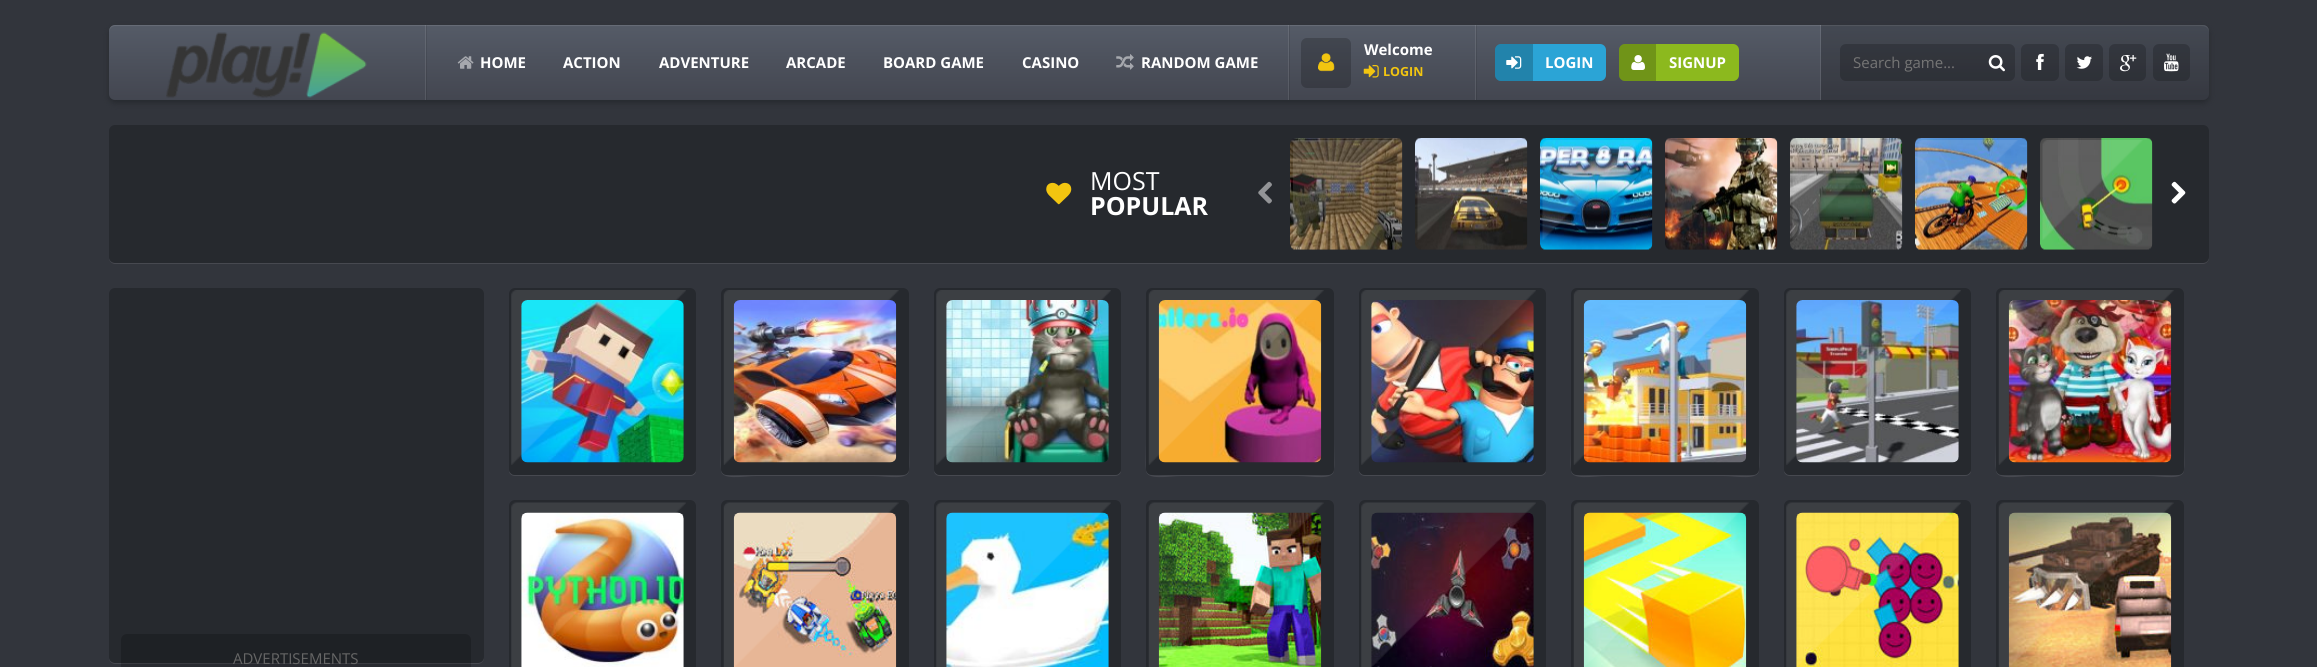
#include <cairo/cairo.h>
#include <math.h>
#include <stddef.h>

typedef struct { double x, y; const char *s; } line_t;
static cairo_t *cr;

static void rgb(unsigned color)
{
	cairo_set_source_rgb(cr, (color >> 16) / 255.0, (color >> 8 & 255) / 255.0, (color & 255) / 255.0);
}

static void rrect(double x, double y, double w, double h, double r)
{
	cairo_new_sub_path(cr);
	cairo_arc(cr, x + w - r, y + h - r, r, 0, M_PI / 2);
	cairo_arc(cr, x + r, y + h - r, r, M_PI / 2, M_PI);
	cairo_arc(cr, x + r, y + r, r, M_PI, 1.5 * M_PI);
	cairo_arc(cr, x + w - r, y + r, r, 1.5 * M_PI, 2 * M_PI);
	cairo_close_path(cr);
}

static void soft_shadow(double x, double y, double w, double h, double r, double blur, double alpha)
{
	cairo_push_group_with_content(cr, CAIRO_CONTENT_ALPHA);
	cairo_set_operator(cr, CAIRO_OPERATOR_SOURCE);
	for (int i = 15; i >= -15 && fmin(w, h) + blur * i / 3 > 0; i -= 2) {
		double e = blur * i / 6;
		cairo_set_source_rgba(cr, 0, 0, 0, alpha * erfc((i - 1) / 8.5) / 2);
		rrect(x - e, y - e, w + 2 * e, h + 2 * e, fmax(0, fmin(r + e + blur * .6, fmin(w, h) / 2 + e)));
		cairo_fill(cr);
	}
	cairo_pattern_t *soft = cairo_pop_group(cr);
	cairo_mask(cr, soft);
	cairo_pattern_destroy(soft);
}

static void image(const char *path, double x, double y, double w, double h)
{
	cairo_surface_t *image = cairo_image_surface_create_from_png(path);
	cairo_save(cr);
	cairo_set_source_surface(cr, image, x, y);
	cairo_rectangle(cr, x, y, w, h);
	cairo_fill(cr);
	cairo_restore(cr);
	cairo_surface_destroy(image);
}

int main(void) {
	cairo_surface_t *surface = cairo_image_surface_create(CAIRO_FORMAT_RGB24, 2317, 667);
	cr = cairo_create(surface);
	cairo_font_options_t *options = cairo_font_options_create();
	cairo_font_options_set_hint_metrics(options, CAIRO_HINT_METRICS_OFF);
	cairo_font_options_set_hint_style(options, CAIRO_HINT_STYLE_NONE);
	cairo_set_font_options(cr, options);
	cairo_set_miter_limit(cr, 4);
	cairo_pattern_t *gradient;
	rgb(0x32353c);
	cairo_paint(cr);
	rgb(0x26292e);
	soft_shadow(109, 28, 2100, 75, 6, 3, 1);
	gradient = cairo_pattern_create_linear(1159, 25, 1159, 100);
	cairo_pattern_add_color_stop_rgba(gradient, 0, 0.333, 0.357, 0.404, 1);
	cairo_pattern_add_color_stop_rgba(gradient, 1, 0.263, 0.275, 0.314, 1);
	cairo_set_source(cr, gradient);
	cairo_pattern_destroy(gradient);
	rrect(109, 25, 2100, 75, 6);
	cairo_fill(cr);
	cairo_set_source_rgba(cr, 1, 1, 1, 0.1);
	cairo_new_path(cr);
	cairo_move_to(cr, 115, 26);
	cairo_line_to(cr, 2202, 26);
	cairo_curve_to(cr, 2206, 26, 2209, 29, 2209, 32);
	cairo_curve_to(cr, 2209, 28, 2207, 25, 2203, 25);
	cairo_line_to(cr, 115, 25);
	cairo_curve_to(cr, 111, 25, 109, 28, 109, 32);
	cairo_curve_to(cr, 109, 29, 112, 26, 115, 26);
	cairo_close_path(cr);
	cairo_fill(cr);
	image("img/1.png", 166, 32, 201, 66);
	cairo_rectangle(cr, 425, 25, 1, 75);
	cairo_fill(cr);
	cairo_set_source_rgba(cr, 0, 0, 0, 0.1);
	cairo_rectangle(cr, 426, 25, 1, 75);
	cairo_fill(cr);
	image("img/2.png", 457, 56, 17, 13);
	image("img/3.png", 1116, 54, 18, 16);
	cairo_set_source_rgba(cr, 1, 1, 1, 0.1);
	cairo_rectangle(cr, 1288, 25, 1, 75);
	cairo_fill(cr);
	cairo_set_source_rgba(cr, 0, 0, 0, 0.1);
	cairo_rectangle(cr, 1289, 25, 1, 75);
	cairo_fill(cr);
	cairo_set_source_rgba(cr, 0, 0, 0, 0.2);
	rrect(1301, 38, 50, 50, 6);
	cairo_fill(cr);
	image("img/4.png", 1318, 53, 17, 19);
	cairo_set_source_rgba(cr, 1, 1, 1, 0.1);
	cairo_rectangle(cr, 1475, 25, 1, 75);
	cairo_fill(cr);
	image("img/5.png", 1363, 65, 16, 13);
	cairo_set_source_rgba(cr, 0, 0, 0, 0.1);
	cairo_rectangle(cr, 1476, 25, 1, 75);
	cairo_fill(cr);
	rgb(0x2ba4d6);
	rrect(1495, 44, 111, 37, 6);
	cairo_fill(cr);
	cairo_set_source_rgba(cr, 0, 0, 0, 0.2);
	cairo_new_path(cr);
	cairo_move_to(cr, 1501, 44);
	cairo_line_to(cr, 1533, 44);
	cairo_line_to(cr, 1533, 81);
	cairo_line_to(cr, 1501, 81);
	cairo_curve_to(cr, 1497.5, 81, 1495, 78.5, 1495, 75);
	cairo_line_to(cr, 1495, 50);
	cairo_curve_to(cr, 1495, 46.5, 1497.5, 44, 1501, 44);
	cairo_close_path(cr);
	cairo_fill(cr);
	image("img/6.png", 1506, 56, 16, 13);
	rgb(0x8cb91e);
	rrect(1619, 44, 120, 37, 6);
	cairo_fill(cr);
	cairo_set_source_rgba(cr, 0, 0, 0, 0.2);
	cairo_new_path(cr);
	cairo_move_to(cr, 1625, 44);
	cairo_line_to(cr, 1656, 44);
	cairo_line_to(cr, 1656, 81);
	cairo_line_to(cr, 1625, 81);
	cairo_curve_to(cr, 1621.5, 81, 1619, 78.5, 1619, 75);
	cairo_line_to(cr, 1619, 50);
	cairo_curve_to(cr, 1619, 46.5, 1621.5, 44, 1625, 44);
	cairo_close_path(cr);
	cairo_fill(cr);
	image("img/7.png", 1631, 55, 14, 15);
	cairo_new_path(cr);
	cairo_move_to(cr, 1821, 25);
	cairo_line_to(cr, 2203, 25);
	cairo_curve_to(cr, 2206.5, 25, 2209, 27.5, 2209, 31);
	cairo_line_to(cr, 2209, 94);
	cairo_curve_to(cr, 2209, 97.5, 2206.5, 100, 2203, 100);
	cairo_line_to(cr, 1821, 100);
	cairo_close_path(cr);
	cairo_fill(cr);
	cairo_set_source_rgba(cr, 1, 1, 1, 0.1);
	cairo_rectangle(cr, 1820, 25, 1, 75);
	cairo_fill(cr);
	cairo_set_source_rgba(cr, 0, 0, 0, 0.2);
	rrect(1840, 44, 175, 37, 6);
	cairo_fill(cr);
	image("img/8.png", 1988, 55, 17, 17);
	rrect(2021, 44, 38, 37, 6);
	cairo_fill(cr);
	image("img/9.png", 2036, 53, 8, 17);
	rrect(2065, 44, 38, 37, 6);
	cairo_fill(cr);
	image("img/10.png", 2076, 56, 16, 13);
	rrect(2109, 44, 37, 37, 6);
	cairo_fill(cr);
	image("img/11.png", 2120, 55, 17, 17);
	rrect(2153, 44, 37, 37, 6);
	cairo_fill(cr);
	image("img/12.png", 2164, 53, 15, 19);
	rgb(0x474950);
	cairo_new_path(cr);
	cairo_move_to(cr, 109, 258);
	cairo_curve_to(cr, 109, 261, 112, 264, 115, 264);
	cairo_line_to(cr, 2203, 264);
	cairo_curve_to(cr, 2206, 264, 2209, 261, 2209, 258);
	cairo_line_to(cr, 2209, 132);
	cairo_line_to(cr, 2209, 130);
	cairo_line_to(cr, 2209, 256);
	cairo_curve_to(cr, 2209, 260, 2206, 262, 2202, 262);
	cairo_line_to(cr, 115, 262);
	cairo_curve_to(cr, 112, 262, 110, 261, 109, 258);
	cairo_close_path(cr);
	cairo_fill(cr);
	rgb(0x26292e);
	rrect(109, 125, 2100, 138, 6);
	cairo_fill(cr);
	image("img/13.png", 1046, 182, 26, 23);
	image("img/14.png", 1290, 138, 113, 112);
	image("img/15.png", 1293, 140, 100, 100);
	image("img/16.png", 1415, 138, 113, 112);
	image("img/17.png", 1417, 140, 100, 100);
	image("img/18.png", 1540, 138, 113, 112);
	image("img/19.png", 1542, 140, 101, 100);
	image("img/20.png", 1665, 138, 113, 112);
	image("img/21.png", 1667, 140, 100, 100);
	image("img/22.png", 1790, 138, 113, 112);
	image("img/23.png", 1792, 140, 101, 100);
	image("img/24.png", 1915, 138, 113, 112);
	image("img/25.png", 1917, 140, 101, 100);
	image("img/26.png", 2040, 138, 113, 112);
	image("img/27.png", 2042, 140, 101, 100);
	image("img/28.png", 1258, 181, 14, 23);
	image("img/29.png", 2171, 181, 15, 23);
	rgb(0x474950);
	cairo_new_path(cr);
	cairo_move_to(cr, 109, 658);
	cairo_curve_to(cr, 109, 661, 112, 664, 115, 664);
	cairo_line_to(cr, 478, 664);
	cairo_curve_to(cr, 481, 664, 484, 661, 484, 658);
	cairo_line_to(cr, 484, 293);
	cairo_line_to(cr, 484, 656);
	cairo_curve_to(cr, 484, 660, 481, 662, 478, 662);
	cairo_line_to(cr, 115, 662);
	cairo_curve_to(cr, 112, 662, 110, 661, 109, 658);
	cairo_close_path(cr);
	cairo_fill(cr);
	rgb(0x26292e);
	rrect(109, 288, 375, 375, 6);
	cairo_fill(cr);
	cairo_set_source_rgba(cr, 0, 0, 0, 0.2);
	rrect(121, 634, 350, 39, 6);
	cairo_fill(cr);
	rgb(0x474950);
	cairo_new_path(cr);
	cairo_move_to(cr, 509, 471);
	cairo_curve_to(cr, 509, 474, 512, 476, 515, 476);
	cairo_line_to(cr, 690, 476);
	cairo_curve_to(cr, 693, 476, 696, 474, 696, 471);
	cairo_curve_to(cr, 695, 473, 693, 475, 690, 475);
	cairo_line_to(cr, 515, 475);
	cairo_curve_to(cr, 512, 475, 510, 473, 509, 471);
	cairo_close_path(cr);
	cairo_fill(cr);
	rgb(0x26292e);
	rrect(509, 288, 187, 187, 6);
	cairo_fill(cr);
	image("img/31.png", 521, 300, 163, 163);
	image("img/30.png", 511, 290, 175, 175);
	rgb(0x474950);
	cairo_new_path(cr);
	cairo_move_to(cr, 721, 293);
	cairo_line_to(cr, 721, 470);
	cairo_curve_to(cr, 721, 481, 744, 476, 756, 476);
	cairo_line_to(cr, 874, 476);
	cairo_curve_to(cr, 886, 476, 909, 481, 909, 470);
	cairo_line_to(cr, 909, 293);
	cairo_line_to(cr, 909, 440);
	cairo_curve_to(cr, 909, 482, 916, 475, 873, 475);
	cairo_line_to(cr, 757, 475);
	cairo_curve_to(cr, 714, 475, 721, 482, 721, 440);
	cairo_close_path(cr);
	cairo_fill(cr);
	rgb(0x26292e);
	rrect(721, 288, 188, 187, 6);
	cairo_fill(cr);
	image("img/33.png", 733, 300, 164, 163);
	image("img/32.png", 723, 290, 176, 175);
	rgb(0x474950);
	cairo_new_path(cr);
	cairo_move_to(cr, 934, 471);
	cairo_curve_to(cr, 934, 474, 937, 476, 940, 476);
	cairo_line_to(cr, 1115, 476);
	cairo_curve_to(cr, 1118, 476, 1121, 474, 1121, 471);
	cairo_curve_to(cr, 1120, 473, 1118, 475, 1115, 475);
	cairo_line_to(cr, 940, 475);
	cairo_curve_to(cr, 937, 475, 935, 473, 934, 471);
	cairo_close_path(cr);
	cairo_fill(cr);
	rgb(0x26292e);
	rrect(934, 288, 187, 187, 6);
	cairo_fill(cr);
	image("img/35.png", 946, 300, 163, 163);
	image("img/34.png", 936, 290, 175, 175);
	rgb(0x474950);
	cairo_new_path(cr);
	cairo_move_to(cr, 1146, 293);
	cairo_line_to(cr, 1146, 470);
	cairo_curve_to(cr, 1146, 481, 1169, 476, 1181, 476);
	cairo_line_to(cr, 1299, 476);
	cairo_curve_to(cr, 1311, 476, 1334, 481, 1334, 470);
	cairo_line_to(cr, 1334, 293);
	cairo_line_to(cr, 1334, 440);
	cairo_curve_to(cr, 1334, 482, 1341, 475, 1298, 475);
	cairo_line_to(cr, 1182, 475);
	cairo_curve_to(cr, 1139, 475, 1146, 482, 1146, 440);
	cairo_close_path(cr);
	cairo_fill(cr);
	rgb(0x26292e);
	rrect(1146, 288, 188, 187, 6);
	cairo_fill(cr);
	image("img/37.png", 1158, 300, 164, 163);
	image("img/36.png", 1148, 290, 176, 175);
	rgb(0x474950);
	cairo_new_path(cr);
	cairo_move_to(cr, 1359, 471);
	cairo_curve_to(cr, 1359, 474, 1362, 476, 1365, 476);
	cairo_line_to(cr, 1540, 476);
	cairo_curve_to(cr, 1543, 476, 1546, 474, 1546, 471);
	cairo_curve_to(cr, 1545, 473, 1543, 475, 1540, 475);
	cairo_line_to(cr, 1365, 475);
	cairo_curve_to(cr, 1362, 475, 1360, 473, 1359, 471);
	cairo_close_path(cr);
	cairo_fill(cr);
	rgb(0x26292e);
	rrect(1359, 288, 187, 187, 6);
	cairo_fill(cr);
	image("img/39.png", 1371, 300, 163, 163);
	image("img/38.png", 1361, 290, 175, 175);
	rgb(0x474950);
	cairo_new_path(cr);
	cairo_move_to(cr, 1571, 293);
	cairo_line_to(cr, 1571, 470);
	cairo_curve_to(cr, 1571, 481, 1594, 476, 1606, 476);
	cairo_line_to(cr, 1724, 476);
	cairo_curve_to(cr, 1736, 476, 1759, 481, 1759, 470);
	cairo_line_to(cr, 1759, 293);
	cairo_line_to(cr, 1759, 440);
	cairo_curve_to(cr, 1759, 482, 1766, 475, 1723, 475);
	cairo_line_to(cr, 1607, 475);
	cairo_curve_to(cr, 1564, 475, 1571, 482, 1571, 440);
	cairo_close_path(cr);
	cairo_fill(cr);
	rgb(0x26292e);
	rrect(1571, 288, 188, 187, 6);
	cairo_fill(cr);
	image("img/41.png", 1583, 300, 164, 163);
	image("img/40.png", 1573, 290, 176, 175);
	rgb(0x474950);
	cairo_new_path(cr);
	cairo_move_to(cr, 1784, 471);
	cairo_curve_to(cr, 1784, 474, 1787, 476, 1790, 476);
	cairo_line_to(cr, 1965, 476);
	cairo_curve_to(cr, 1968, 476, 1971, 474, 1971, 471);
	cairo_curve_to(cr, 1970, 473, 1968, 475, 1965, 475);
	cairo_line_to(cr, 1790, 475);
	cairo_curve_to(cr, 1787, 475, 1785, 473, 1784, 471);
	cairo_close_path(cr);
	cairo_fill(cr);
	rgb(0x26292e);
	rrect(1784, 288, 187, 187, 6);
	cairo_fill(cr);
	image("img/43.png", 1796, 300, 163, 163);
	image("img/42.png", 1786, 290, 175, 175);
	rgb(0x474950);
	cairo_new_path(cr);
	cairo_move_to(cr, 1996, 293);
	cairo_line_to(cr, 1996, 470);
	cairo_curve_to(cr, 1996, 481, 2019, 476, 2031, 476);
	cairo_line_to(cr, 2149, 476);
	cairo_curve_to(cr, 2161, 476, 2184, 481, 2184, 470);
	cairo_line_to(cr, 2184, 293);
	cairo_line_to(cr, 2184, 440);
	cairo_curve_to(cr, 2184, 482, 2191, 475, 2148, 475);
	cairo_line_to(cr, 2032, 475);
	cairo_curve_to(cr, 1989, 475, 1996, 482, 1996, 440);
	cairo_close_path(cr);
	cairo_fill(cr);
	rgb(0x26292e);
	rrect(1996, 288, 188, 187, 6);
	cairo_fill(cr);
	image("img/45.png", 2008, 300, 164, 163);
	image("img/44.png", 1998, 290, 176, 175);
	rrect(509, 500, 187, 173, 6);
	cairo_fill(cr);
	image("img/47.png", 521, 512, 163, 155);
	image("img/46.png", 511, 502, 175, 165);
	rrect(721, 500, 188, 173, 6);
	cairo_fill(cr);
	image("img/49.png", 733, 512, 164, 155);
	image("img/48.png", 723, 502, 176, 165);
	rrect(934, 500, 187, 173, 6);
	cairo_fill(cr);
	image("img/51.png", 946, 512, 163, 155);
	image("img/50.png", 936, 502, 175, 165);
	rrect(1146, 500, 188, 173, 6);
	cairo_fill(cr);
	image("img/53.png", 1158, 512, 164, 155);
	image("img/52.png", 1148, 502, 176, 165);
	rrect(1359, 500, 187, 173, 6);
	cairo_fill(cr);
	image("img/55.png", 1371, 512, 163, 155);
	image("img/54.png", 1361, 502, 175, 165);
	rrect(1571, 500, 188, 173, 6);
	cairo_fill(cr);
	image("img/57.png", 1583, 512, 164, 155);
	image("img/56.png", 1573, 502, 176, 165);
	rrect(1784, 500, 187, 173, 6);
	cairo_fill(cr);
	image("img/59.png", 1796, 512, 163, 155);
	image("img/58.png", 1786, 502, 175, 165);
	rrect(1996, 500, 188, 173, 6);
	cairo_fill(cr);
	image("img/61.png", 2008, 512, 164, 155);
	image("img/60.png", 1998, 502, 176, 165);
	cairo_select_font_face(cr, "Open Sans", CAIRO_FONT_SLANT_NORMAL, CAIRO_FONT_WEIGHT_BOLD);
	cairo_set_font_size(cr, 15);
	rgb(0xffffff);
	{
		static const line_t items[] = {
			{480, 68, "HOME"},
			{563, 68, "ACTION"},
			{659, 68, "ADVENTURE"},
			{786, 68, "ARCADE"},
			{883, 68, "BOARD GAME"},
			{1022, 68, "CASINO"},
			{1141, 68, "RANDOM GAME"},
			{1364, 55, "Welcome"},
		};
		for (size_t i = 0; i < sizeof items / sizeof *items; i++) {
			cairo_move_to(cr, items[i].x, items[i].y);
			cairo_show_text(cr, items[i].s);
		}
	}
	cairo_set_font_size(cr, 12.5);
	rgb(0xf2c510);
	cairo_move_to(cr, 1383, 76);
	cairo_show_text(cr, "LOGIN");
	cairo_set_font_size(cr, 15);
	rgb(0xffffff);
	cairo_move_to(cr, 1545, 68);
	cairo_show_text(cr, "LOGIN");
	cairo_move_to(cr, 1669, 68);
	cairo_show_text(cr, "SIGNUP");
	cairo_select_font_face(cr, "Open Sans", CAIRO_FONT_SLANT_NORMAL, CAIRO_FONT_WEIGHT_NORMAL);
	rgb(0x757575);
	cairo_move_to(cr, 1853, 68);
	cairo_show_text(cr, "Search game...");
	cairo_set_font_size(cr, 25);
	rgb(0xffffff);
	cairo_move_to(cr, 1090, 190);
	cairo_show_text(cr, "MOST");
	cairo_select_font_face(cr, "Open Sans", CAIRO_FONT_SLANT_NORMAL, CAIRO_FONT_WEIGHT_BOLD);
	cairo_move_to(cr, 1090, 215);
	cairo_show_text(cr, "POPULAR");
	cairo_select_font_face(cr, "Open Sans", CAIRO_FONT_SLANT_NORMAL, CAIRO_FONT_WEIGHT_NORMAL);
	cairo_set_font_size(cr, 15);
	rgb(0x666666);
	cairo_move_to(cr, 233, 664);
	cairo_show_text(cr, "ADVERTISEMENTS");
	cairo_surface_write_to_png(surface, "page.png");
	cairo_font_options_destroy(options);
	cairo_destroy(cr);
	cairo_surface_destroy(surface);
	return 0;
}
